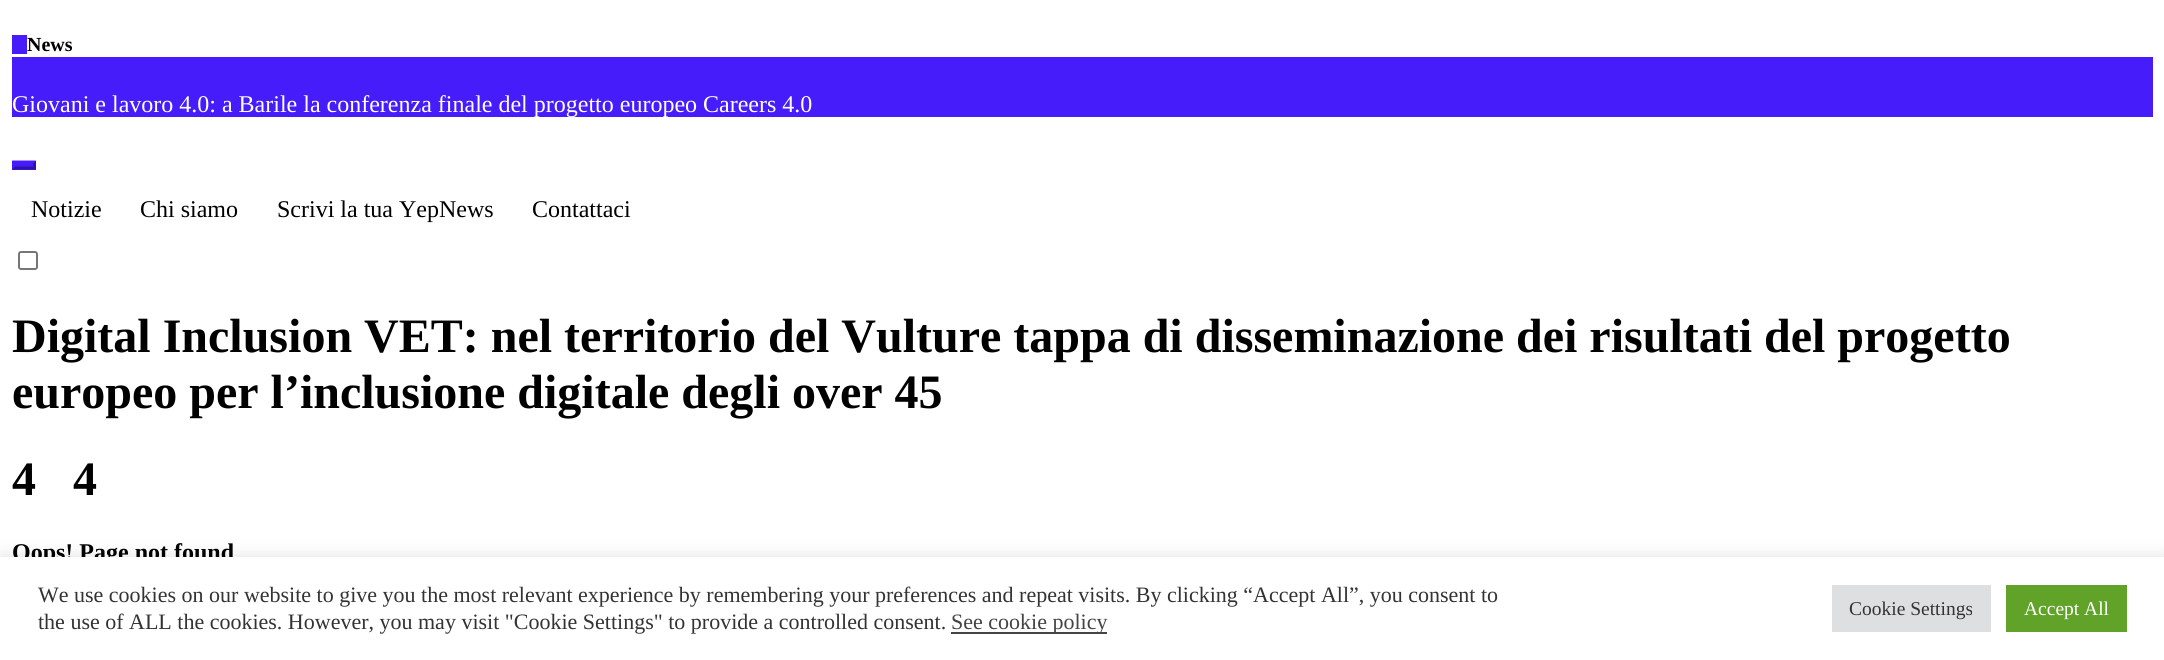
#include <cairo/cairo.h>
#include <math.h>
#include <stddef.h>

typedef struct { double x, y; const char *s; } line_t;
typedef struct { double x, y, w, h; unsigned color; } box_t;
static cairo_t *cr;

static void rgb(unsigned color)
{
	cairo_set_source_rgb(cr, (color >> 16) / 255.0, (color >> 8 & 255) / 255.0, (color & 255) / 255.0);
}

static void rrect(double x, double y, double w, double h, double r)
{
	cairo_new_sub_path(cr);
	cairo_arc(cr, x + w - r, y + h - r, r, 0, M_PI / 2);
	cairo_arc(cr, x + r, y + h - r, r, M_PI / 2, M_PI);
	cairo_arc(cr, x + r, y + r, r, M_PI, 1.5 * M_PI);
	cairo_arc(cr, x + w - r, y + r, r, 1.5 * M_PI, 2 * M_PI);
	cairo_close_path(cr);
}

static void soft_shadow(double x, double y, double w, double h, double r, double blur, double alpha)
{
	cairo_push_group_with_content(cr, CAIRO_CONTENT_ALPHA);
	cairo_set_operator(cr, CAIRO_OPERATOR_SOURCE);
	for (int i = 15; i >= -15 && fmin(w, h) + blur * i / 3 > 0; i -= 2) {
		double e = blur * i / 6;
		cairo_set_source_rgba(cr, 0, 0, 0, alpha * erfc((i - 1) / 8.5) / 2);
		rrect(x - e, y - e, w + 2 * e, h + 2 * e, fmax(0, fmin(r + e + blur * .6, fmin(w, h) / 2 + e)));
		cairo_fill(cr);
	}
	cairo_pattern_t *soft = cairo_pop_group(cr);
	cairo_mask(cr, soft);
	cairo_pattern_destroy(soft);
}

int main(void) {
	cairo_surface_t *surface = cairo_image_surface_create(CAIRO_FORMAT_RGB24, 2164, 660);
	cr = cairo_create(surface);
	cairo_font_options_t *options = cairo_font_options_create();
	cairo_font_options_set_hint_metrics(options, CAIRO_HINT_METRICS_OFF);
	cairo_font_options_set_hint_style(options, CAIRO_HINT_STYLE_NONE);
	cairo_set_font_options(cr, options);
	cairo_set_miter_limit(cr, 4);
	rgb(0xffffff);
	cairo_paint(cr);
	{
		static const box_t items[] = {
			{12, 57, 2141, 60, 0x461cfb},
			{12, 35, 15, 19, 0x461cfb},
			{12, 161, 24, 9, 0x461cfb},
		};
		for (size_t i = 0; i < sizeof items / sizeof *items; i++) {
			rgb(items[i].color);
			cairo_rectangle(cr, items[i].x, items[i].y, items[i].w, items[i].h);
			cairo_fill(cr);
		}
	}
	cairo_new_path(cr);
	cairo_move_to(cr, 12, 160.5);
	cairo_line_to(cr, 36, 160.5);
	cairo_line_to(cr, 33, 163.5);
	cairo_line_to(cr, 15, 163.5);
	cairo_close_path(cr);
	cairo_fill(cr);
	rgb(0x2f13a7);
	cairo_new_path(cr);
	cairo_move_to(cr, 36, 160.5);
	cairo_line_to(cr, 36, 169.5);
	cairo_line_to(cr, 33, 166.5);
	cairo_line_to(cr, 33, 163.5);
	cairo_close_path(cr);
	cairo_fill(cr);
	cairo_new_path(cr);
	cairo_move_to(cr, 36, 169.5);
	cairo_line_to(cr, 12, 169.5);
	cairo_line_to(cr, 15, 166.5);
	cairo_line_to(cr, 33, 166.5);
	cairo_close_path(cr);
	cairo_fill(cr);
	rgb(0x461cfb);
	cairo_new_path(cr);
	cairo_move_to(cr, 12, 169.5);
	cairo_line_to(cr, 12, 160.5);
	cairo_line_to(cr, 15, 163.5);
	cairo_line_to(cr, 15, 166.5);
	cairo_close_path(cr);
	cairo_fill(cr);
	rrect(19, 252, 18, 17, 2);
	rgb(0x767676);
	cairo_stroke(cr);
	rgb(0xacabab);
	soft_shadow(0, 555, 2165, 104, 0, 7.5, 0.3);
	cairo_select_font_face(cr, "Liberation Serif", CAIRO_FONT_SLANT_NORMAL, CAIRO_FONT_WEIGHT_BOLD);
	cairo_set_font_size(cr, 20);
	rgb(0x000000);
	cairo_move_to(cr, 27, 51);
	cairo_show_text(cr, "News");
	cairo_save(cr);
	cairo_rectangle(cr, 12, 90, 2141, 27);
	cairo_clip(cr);
	cairo_select_font_face(cr, "Liberation Serif", CAIRO_FONT_SLANT_NORMAL, CAIRO_FONT_WEIGHT_NORMAL);
	cairo_set_font_size(cr, 24);
	rgb(0xffffff);
	cairo_move_to(cr, 12, 112);
	cairo_show_text(cr, "Giovani e lavoro 4.0: a Barile la conferenza finale del progetto europeo Careers 4.0");
	cairo_restore(cr);
	cairo_select_font_face(cr, "Liberation Serif", CAIRO_FONT_SLANT_NORMAL, CAIRO_FONT_WEIGHT_NORMAL);
	cairo_set_font_size(cr, 24);
	{
		static const line_t items[] = {
			{31, 217, "Notizie"},
			{140, 217, "Chi siamo"},
			{277, 217, "Scrivi la tua YepNews"},
			{532, 217, "Contattaci"},
		};
		for (size_t i = 0; i < sizeof items / sizeof *items; i++) {
			cairo_move_to(cr, items[i].x, items[i].y);
			cairo_show_text(cr, items[i].s);
		}
	}
	cairo_select_font_face(cr, "Liberation Serif", CAIRO_FONT_SLANT_NORMAL, CAIRO_FONT_WEIGHT_BOLD);
	cairo_set_font_size(cr, 48);
	{
		static const line_t items[] = {
			{12, 352, "Digital Inclusion VET: nel territorio del Vulture tappa di disseminazione dei risultati del progetto"},
			{12, 408, "europeo per l’inclusione digitale degli over 45"},
			{12, 495, "4"},
			{73, 495, "4"},
		};
		for (size_t i = 0; i < sizeof items / sizeof *items; i++) {
			cairo_move_to(cr, items[i].x, items[i].y);
			cairo_show_text(cr, items[i].s);
		}
	}
	cairo_set_font_size(cr, 24);
	cairo_move_to(cr, 12, 560);
	cairo_show_text(cr, "Oops! Page not found");
	rgb(0xffffff);
	cairo_rectangle(cr, 0, 557, 2164, 103);
	cairo_fill(cr);
	cairo_select_font_face(cr, "Liberation Serif", CAIRO_FONT_SLANT_NORMAL, CAIRO_FONT_WEIGHT_NORMAL);
	cairo_set_font_size(cr, 22);
	rgb(0x333333);
	cairo_move_to(cr, 38, 602);
	cairo_show_text(cr, "We use cookies on our website to give you the most relevant experience by remembering your preferences and repeat visits. By clicking “Accept All”, you consent to");
	cairo_move_to(cr, 38, 629);
	cairo_show_text(cr, "the use of ALL the cookies. However, you may visit \"Cookie Settings\" to provide a controlled consent.");
	rgb(0x444444);
	cairo_rectangle(cr, 951, 632, 156, 2);
	cairo_fill(cr);
	cairo_move_to(cr, 951, 629);
	cairo_show_text(cr, "See cookie policy");
	rgb(0xdedfe0);
	cairo_rectangle(cr, 1832, 585, 159, 47);
	cairo_fill(cr);
	cairo_set_font_size(cr, 19.5);
	rgb(0x333333);
	cairo_move_to(cr, 1849, 615);
	cairo_show_text(cr, "Cookie Settings");
	rgb(0x61a229);
	cairo_rectangle(cr, 2006, 585, 121, 47);
	cairo_fill(cr);
	rgb(0xffffff);
	cairo_move_to(cr, 2024, 615);
	cairo_show_text(cr, "Accept All");
	cairo_surface_write_to_png(surface, "page.png");
	cairo_font_options_destroy(options);
	cairo_destroy(cr);
	cairo_surface_destroy(surface);
	return 0;
}
